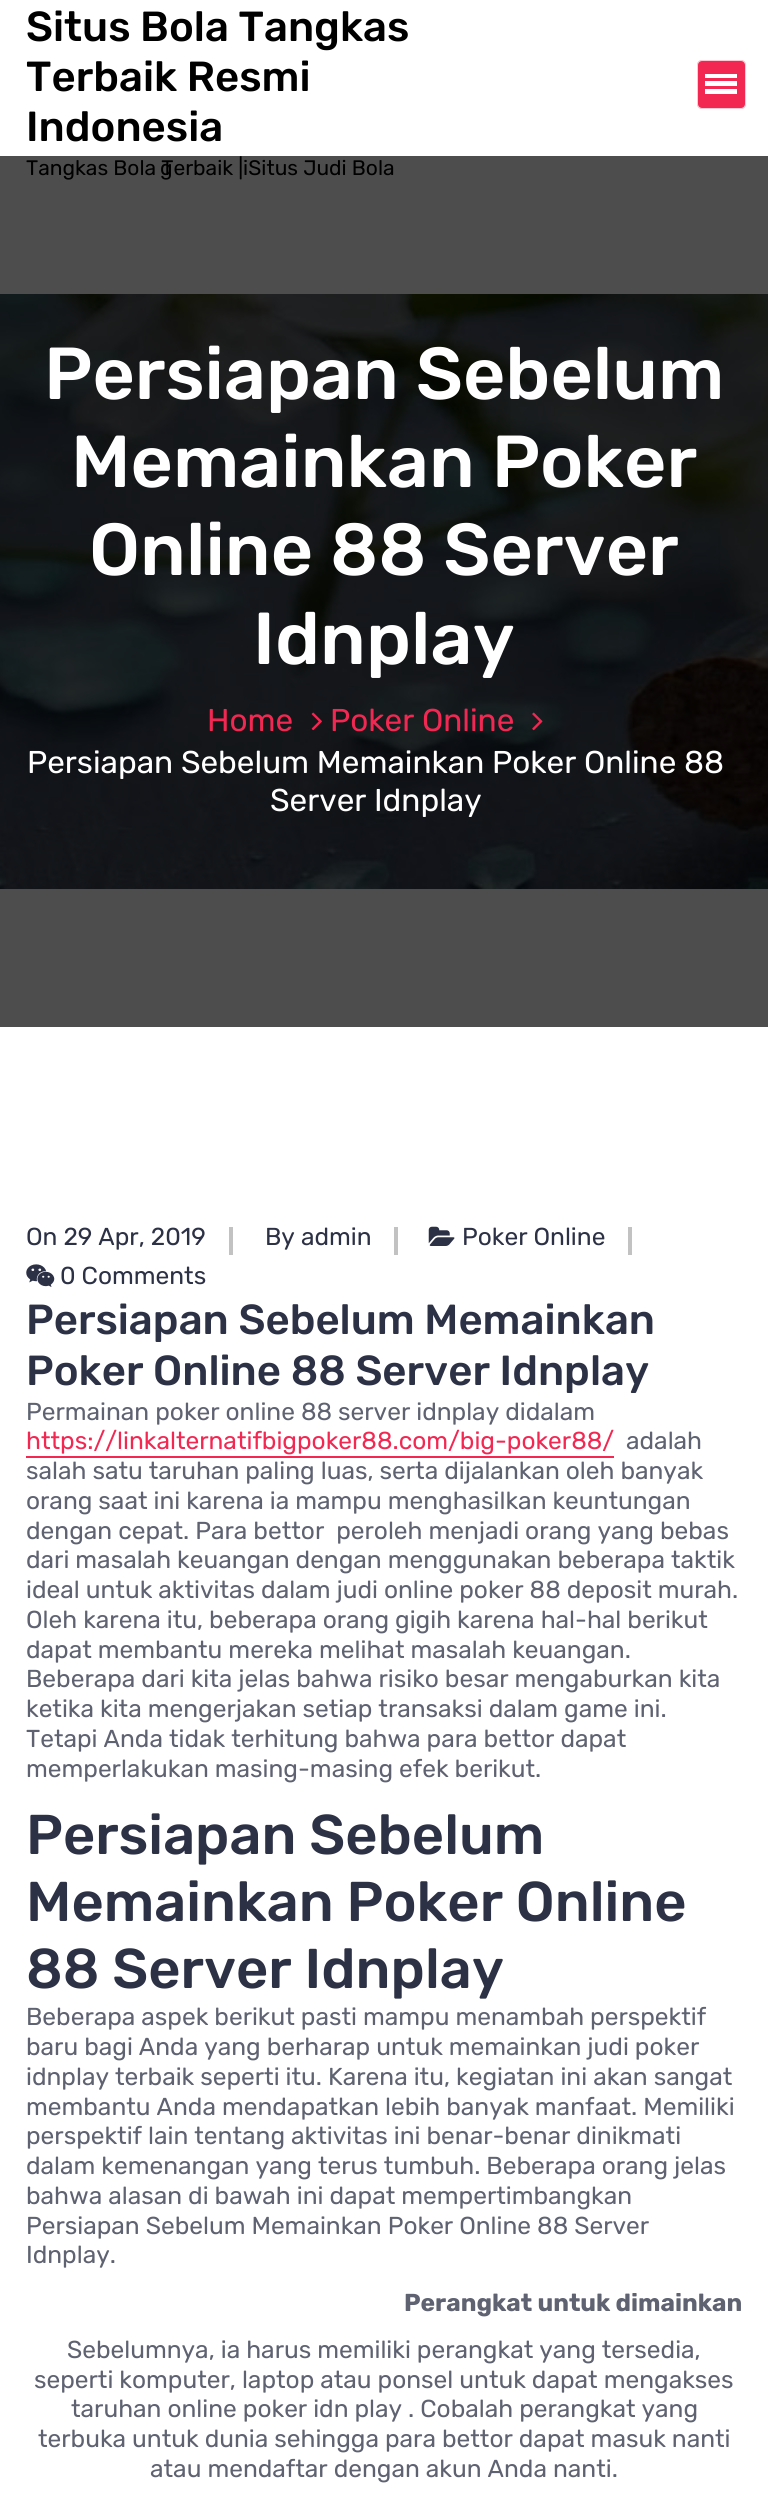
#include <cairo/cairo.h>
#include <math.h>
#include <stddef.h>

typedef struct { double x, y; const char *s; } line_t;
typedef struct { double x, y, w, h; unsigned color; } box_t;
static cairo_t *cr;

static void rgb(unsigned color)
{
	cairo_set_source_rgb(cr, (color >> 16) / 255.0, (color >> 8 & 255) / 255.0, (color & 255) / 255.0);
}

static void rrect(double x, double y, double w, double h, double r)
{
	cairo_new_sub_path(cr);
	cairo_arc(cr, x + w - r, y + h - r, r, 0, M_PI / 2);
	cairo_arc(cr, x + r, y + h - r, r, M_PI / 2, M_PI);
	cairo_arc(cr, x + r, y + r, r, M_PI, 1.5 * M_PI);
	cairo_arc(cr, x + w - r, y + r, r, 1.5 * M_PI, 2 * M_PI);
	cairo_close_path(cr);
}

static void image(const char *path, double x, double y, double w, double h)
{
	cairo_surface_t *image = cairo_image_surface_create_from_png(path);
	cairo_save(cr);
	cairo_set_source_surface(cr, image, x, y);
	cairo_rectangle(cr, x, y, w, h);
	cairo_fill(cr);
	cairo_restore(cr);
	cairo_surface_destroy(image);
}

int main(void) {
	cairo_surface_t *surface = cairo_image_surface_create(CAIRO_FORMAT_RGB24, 768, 2503);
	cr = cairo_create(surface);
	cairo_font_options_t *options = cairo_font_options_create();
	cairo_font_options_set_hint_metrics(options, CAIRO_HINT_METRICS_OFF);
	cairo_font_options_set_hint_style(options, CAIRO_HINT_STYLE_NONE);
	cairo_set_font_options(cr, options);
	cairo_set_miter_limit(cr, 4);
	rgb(0xffffff);
	cairo_paint(cr);
	rgb(0x4d4d4d);
	cairo_rectangle(cr, 0, 156, 768, 871);
	cairo_fill(cr);
	rgb(0xf22853);
	rrect(697.5, 60.5, 48, 48, 4.5);
	cairo_fill_preserve(cr);
	rgb(0xffffff);
	cairo_set_line_width(cr, 1);
	cairo_stroke(cr);
	cairo_set_source_rgba(cr, 0.949, 0.157, 0.325, 0.5);
	rrect(697, 60, 49, 49, 5);
	cairo_fill(cr);
	rrect(697.5, 60.5, 48, 48, 4.5);
	cairo_set_source_rgba(cr, 1, 1, 1, 0.5);
	cairo_stroke(cr);
	{
		static const box_t items[] = {
			{705, 74, 32, 4, 0xffffff},
			{705, 81, 32, 5, 0xffffff},
			{705, 89, 32, 5, 0xffffff},
		};
		for (size_t i = 0; i < sizeof items / sizeof *items; i++) {
			rgb(items[i].color);
			cairo_rectangle(cr, items[i].x, items[i].y, items[i].w, items[i].h);
			cairo_fill(cr);
		}
	}
	image("img/1.png", 0, 294, 768, 595);
	image("img/2.png", 311, 712, 11, 19);
	image("img/3.png", 532, 712, 11, 19);
	rgb(0xc2c2c2);
	cairo_rectangle(cr, 229, 1227, 4, 28);
	cairo_fill(cr);
	cairo_rectangle(cr, 394, 1227, 4, 28);
	cairo_fill(cr);
	image("img/4.png", 428, 1226, 27, 20);
	cairo_rectangle(cr, 628, 1227, 4, 28);
	cairo_fill(cr);
	image("img/5.png", 26, 1264, 29, 23);
	rgb(0xf22853);
	cairo_rectangle(cr, 26, 1456, 588, 2);
	cairo_fill(cr);
	cairo_select_font_face(cr, "Rubik Medium", CAIRO_FONT_SLANT_NORMAL, CAIRO_FONT_WEIGHT_NORMAL);
	cairo_set_font_size(cr, 42);
	rgb(0x000000);
	{
		static const line_t items[] = {
			{26, 41, "Situs Bola Tangkas"},
			{26, 91, "Terbaik Resmi"},
			{26, 141, "Indonesia"},
		};
		for (size_t i = 0; i < sizeof items / sizeof *items; i++) {
			cairo_move_to(cr, items[i].x, items[i].y);
			cairo_show_text(cr, items[i].s);
		}
	}
	cairo_select_font_face(cr, "Rubik", CAIRO_FONT_SLANT_NORMAL, CAIRO_FONT_WEIGHT_NORMAL);
	cairo_set_font_size(cr, 21);
	{
		static const line_t items[] = {
			{26, 175, "Tangkas Bola Terbaik | Situs Judi Bola"},
			{160, 175, "g"},
			{243, 175, "i"},
		};
		for (size_t i = 0; i < sizeof items / sizeof *items; i++) {
			cairo_move_to(cr, items[i].x, items[i].y);
			cairo_show_text(cr, items[i].s);
		}
	}
	cairo_select_font_face(cr, "Rubik Medium", CAIRO_FONT_SLANT_NORMAL, CAIRO_FONT_WEIGHT_NORMAL);
	cairo_set_font_size(cr, 73.5);
	rgb(0xffffff);
	{
		static const line_t items[] = {
			{44, 399, "Persiapan Sebelum"},
			{71, 487, "Memainkan Poker"},
			{89, 575, "Online 88 Server"},
			{253, 664, "Idnplay"},
		};
		for (size_t i = 0; i < sizeof items / sizeof *items; i++) {
			cairo_move_to(cr, items[i].x, items[i].y);
			cairo_show_text(cr, items[i].s);
		}
	}
	cairo_select_font_face(cr, "Rubik", CAIRO_FONT_SLANT_NORMAL, CAIRO_FONT_WEIGHT_NORMAL);
	cairo_set_font_size(cr, 31.5);
	rgb(0xf22853);
	cairo_move_to(cr, 207, 731);
	cairo_show_text(cr, "Home");
	cairo_move_to(cr, 330, 731);
	cairo_show_text(cr, "Poker Online");
	rgb(0xffffff);
	cairo_move_to(cr, 27, 773);
	cairo_show_text(cr, "Persiapan Sebelum Memainkan Poker Online 88");
	cairo_move_to(cr, 270, 811);
	cairo_show_text(cr, "Server Idnplay");
	cairo_set_font_size(cr, 24.5);
	rgb(0x2c3145);
	{
		static const line_t items[] = {
			{26, 1245, "On 29 Apr, 2019"},
			{265, 1245, "By admin"},
			{462, 1245, "Poker Online"},
			{60, 1284, "0 Comments"},
		};
		for (size_t i = 0; i < sizeof items / sizeof *items; i++) {
			cairo_move_to(cr, items[i].x, items[i].y);
			cairo_show_text(cr, items[i].s);
		}
	}
	cairo_select_font_face(cr, "Rubik Medium", CAIRO_FONT_SLANT_NORMAL, CAIRO_FONT_WEIGHT_NORMAL);
	cairo_set_font_size(cr, 42);
	cairo_move_to(cr, 26, 1334);
	cairo_show_text(cr, "Persiapan Sebelum Memainkan");
	cairo_move_to(cr, 26, 1385);
	cairo_show_text(cr, "Poker Online 88 Server Idnplay");
	cairo_select_font_face(cr, "Rubik", CAIRO_FONT_SLANT_NORMAL, CAIRO_FONT_WEIGHT_NORMAL);
	cairo_set_font_size(cr, 24.5);
	rgb(0x5e6271);
	cairo_move_to(cr, 26, 1420);
	cairo_show_text(cr, "Permainan poker online 88 server idnplay didalam");
	rgb(0xf22853);
	cairo_move_to(cr, 26, 1449);
	cairo_show_text(cr, "https://linkalternatifbigpoker88.com/big-poker88/");
	rgb(0x5e6271);
	{
		static const line_t items[] = {
			{626, 1449, "adalah"},
			{26, 1479, "salah satu taruhan paling luas, serta dijalankan oleh banyak"},
			{26, 1509, "orang saat ini karena ia mampu menghasilkan keuntungan"},
			{26, 1539, "dengan cepat. Para bettor  peroleh menjadi orang yang bebas"},
			{26, 1568, "dari masalah keuangan dengan menggunakan beberapa taktik"},
			{26, 1598, "ideal untuk aktivitas dalam judi online poker 88 deposit murah."},
			{26, 1628, "Oleh karena itu, beberapa orang gigih karena hal-hal berikut"},
			{26, 1658, "dapat membantu mereka melihat masalah keuangan."},
			{26, 1687, "Beberapa dari kita jelas bahwa risiko besar mengaburkan kita"},
			{26, 1717, "ketika kita mengerjakan setiap transaksi dalam game ini."},
			{26, 1747, "Tetapi Anda tidak terhitung bahwa para bettor dapat"},
			{26, 1777, "memperlakukan masing-masing efek berikut."},
		};
		for (size_t i = 0; i < sizeof items / sizeof *items; i++) {
			cairo_move_to(cr, items[i].x, items[i].y);
			cairo_show_text(cr, items[i].s);
		}
	}
	cairo_select_font_face(cr, "Rubik Medium", CAIRO_FONT_SLANT_NORMAL, CAIRO_FONT_WEIGHT_NORMAL);
	cairo_set_font_size(cr, 56);
	rgb(0x2c3145);
	{
		static const line_t items[] = {
			{26, 1854, "Persiapan Sebelum"},
			{26, 1921, "Memainkan Poker Online"},
			{26, 1988, "88 Server Idnplay"},
		};
		for (size_t i = 0; i < sizeof items / sizeof *items; i++) {
			cairo_move_to(cr, items[i].x, items[i].y);
			cairo_show_text(cr, items[i].s);
		}
	}
	cairo_select_font_face(cr, "Rubik", CAIRO_FONT_SLANT_NORMAL, CAIRO_FONT_WEIGHT_NORMAL);
	cairo_set_font_size(cr, 24.5);
	rgb(0x5e6271);
	{
		static const line_t items[] = {
			{26, 2025, "Beberapa aspek berikut pasti mampu menambah perspektif"},
			{26, 2055, "baru bagi Anda yang berharap untuk memainkan judi poker"},
			{26, 2085, "idnplay terbaik seperti itu. Karena itu, kegiatan ini akan sangat"},
			{26, 2115, "membantu Anda mendapatkan lebih banyak manfaat. Memiliki"},
			{26, 2144, "perspektif lain tentang aktivitas ini benar-benar dinikmati"},
			{26, 2174, "dalam kemenangan yang terus tumbuh. Beberapa orang jelas"},
			{26, 2204, "bahwa alasan di bawah ini dapat mempertimbangkan"},
			{26, 2234, "Persiapan Sebelum Memainkan Poker Online 88 Server"},
			{26, 2263, "Idnplay."},
		};
		for (size_t i = 0; i < sizeof items / sizeof *items; i++) {
			cairo_move_to(cr, items[i].x, items[i].y);
			cairo_show_text(cr, items[i].s);
		}
	}
	cairo_select_font_face(cr, "Rubik", CAIRO_FONT_SLANT_NORMAL, CAIRO_FONT_WEIGHT_BOLD);
	cairo_move_to(cr, 404, 2311);
	cairo_show_text(cr, "Perangkat untuk dimainkan");
	cairo_select_font_face(cr, "Rubik", CAIRO_FONT_SLANT_NORMAL, CAIRO_FONT_WEIGHT_NORMAL);
	{
		static const line_t items[] = {
			{67, 2358, "Sebelumnya, ia harus memiliki perangkat yang tersedia,"},
			{34, 2388, "seperti komputer, laptop atau ponsel untuk dapat mengakses"},
			{71, 2417, "taruhan online poker idn play . Cobalah perangkat yang"},
			{38, 2447, "terbuka untuk dunia sehingga para bettor dapat masuk nanti"},
			{150, 2477, "atau mendaftar dengan akun Anda nanti."},
		};
		for (size_t i = 0; i < sizeof items / sizeof *items; i++) {
			cairo_move_to(cr, items[i].x, items[i].y);
			cairo_show_text(cr, items[i].s);
		}
	}
	cairo_surface_write_to_png(surface, "page.png");
	cairo_font_options_destroy(options);
	cairo_destroy(cr);
	cairo_surface_destroy(surface);
	return 0;
}
